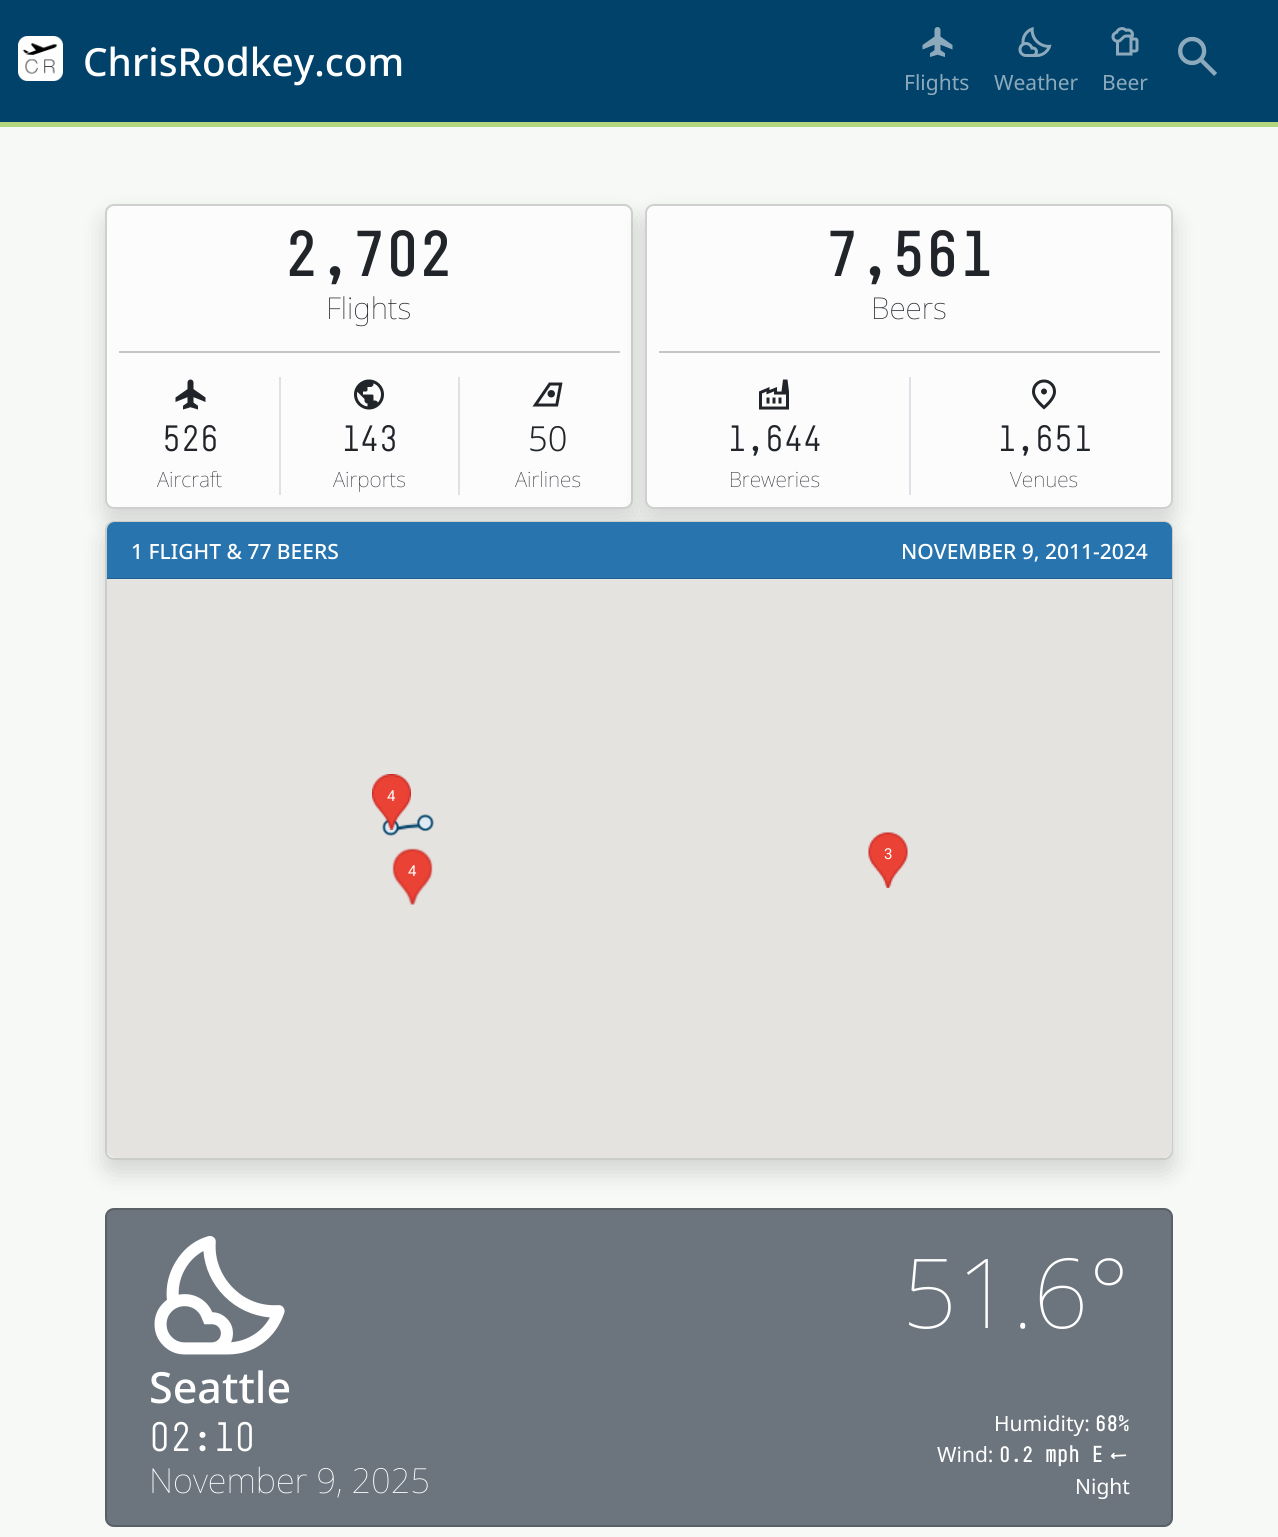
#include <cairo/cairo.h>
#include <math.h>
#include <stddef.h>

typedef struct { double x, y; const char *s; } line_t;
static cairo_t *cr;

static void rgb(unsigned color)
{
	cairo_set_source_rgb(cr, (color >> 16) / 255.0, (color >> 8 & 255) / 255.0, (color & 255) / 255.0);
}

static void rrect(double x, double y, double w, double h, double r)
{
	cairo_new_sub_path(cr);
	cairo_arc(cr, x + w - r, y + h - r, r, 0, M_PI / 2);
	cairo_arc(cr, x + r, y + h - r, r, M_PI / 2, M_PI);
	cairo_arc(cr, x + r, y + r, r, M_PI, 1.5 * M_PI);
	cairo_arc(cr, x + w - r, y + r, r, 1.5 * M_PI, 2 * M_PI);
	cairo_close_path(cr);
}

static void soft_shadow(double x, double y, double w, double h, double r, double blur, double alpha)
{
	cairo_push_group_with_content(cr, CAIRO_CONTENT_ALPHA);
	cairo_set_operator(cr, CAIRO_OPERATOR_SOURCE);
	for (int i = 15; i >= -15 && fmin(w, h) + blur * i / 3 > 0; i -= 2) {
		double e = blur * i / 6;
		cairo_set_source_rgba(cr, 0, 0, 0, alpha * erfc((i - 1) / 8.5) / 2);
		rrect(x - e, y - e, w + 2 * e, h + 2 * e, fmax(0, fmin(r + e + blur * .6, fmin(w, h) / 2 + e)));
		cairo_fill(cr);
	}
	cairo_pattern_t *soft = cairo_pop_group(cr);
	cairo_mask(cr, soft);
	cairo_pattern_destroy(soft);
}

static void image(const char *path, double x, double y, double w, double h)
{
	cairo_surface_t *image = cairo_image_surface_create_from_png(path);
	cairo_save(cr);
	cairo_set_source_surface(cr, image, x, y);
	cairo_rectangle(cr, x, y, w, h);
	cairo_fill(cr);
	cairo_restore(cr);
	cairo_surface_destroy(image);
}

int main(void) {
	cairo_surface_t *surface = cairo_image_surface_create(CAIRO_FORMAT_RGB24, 1278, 1537);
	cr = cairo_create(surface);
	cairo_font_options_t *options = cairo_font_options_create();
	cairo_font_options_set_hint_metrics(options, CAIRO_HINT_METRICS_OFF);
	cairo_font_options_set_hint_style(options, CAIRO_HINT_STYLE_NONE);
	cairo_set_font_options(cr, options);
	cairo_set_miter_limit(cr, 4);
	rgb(0xf6f9f6);
	cairo_paint(cr);
	rgb(0x01426a);
	cairo_rectangle(cr, 0, 0, 1278, 122);
	cairo_fill(cr);
	rgb(0xb3d57d);
	cairo_rectangle(cr, 0, 122, 1278, 5);
	cairo_fill(cr);
	image("img/1.png", 18, 36, 45, 45);
	image("img/2.png", 1178, 36, 39, 40);
	image("img/3.png", 922, 27, 31, 30);
	image("img/4.png", 1018, 27, 34, 30);
	image("img/5.png", 1111, 27, 28, 29);
	rgb(0x000000);
	soft_shadow(105, 216, 528, 305, 9, 12, 0.15);
	rgb(0xfcfcfd);
	rrect(105, 204, 528, 305, 9);
	cairo_fill(cr);
	rrect(106, 205, 526, 303, 8);
	cairo_set_source_rgba(cr, 0, 0, 0, 0.18);
	cairo_stroke(cr);
	rgb(0xc5c6c8);
	cairo_rectangle(cr, 119, 351, 501, 2);
	cairo_fill(cr);
	image("img/6.png", 175, 379, 31, 31);
	rgb(0xdee2e6);
	cairo_rectangle(cr, 458, 377, 2, 118);
	cairo_fill(cr);
	cairo_rectangle(cr, 279, 377, 2, 118);
	cairo_fill(cr);
	image("img/7.png", 354, 379, 30, 31);
	image("img/8.png", 532, 382, 31, 25);
	rgb(0x000000);
	soft_shadow(645, 216, 528, 305, 9, 12, 0.15);
	rgb(0xfcfcfd);
	rrect(645, 204, 528, 305, 9);
	cairo_fill(cr);
	rrect(646, 205, 526, 303, 8);
	cairo_set_source_rgba(cr, 0, 0, 0, 0.18);
	cairo_stroke(cr);
	rgb(0xc5c6c8);
	cairo_rectangle(cr, 659, 351, 501, 2);
	cairo_fill(cr);
	image("img/9.png", 759, 379, 30, 31);
	rgb(0xdee2e6);
	cairo_rectangle(cr, 909, 377, 2, 118);
	cairo_fill(cr);
	image("img/10.png", 1032, 379, 24, 31);
	rgb(0x000000);
	soft_shadow(105, 533, 1068, 639, 9, 12, 0.15);
	rgb(0xf6f9f6);
	rrect(105, 521, 1068, 639, 9);
	cairo_fill(cr);
	rrect(106, 522, 1066, 637, 8);
	cairo_set_source_rgba(cr, 0, 0, 0, 0.18);
	cairo_stroke(cr);
	rgb(0x2774ae);
	cairo_new_path(cr);
	cairo_move_to(cr, 115, 522);
	cairo_line_to(cr, 1164, 522);
	cairo_curve_to(cr, 1168.5, 522, 1172, 525.5, 1172, 530);
	cairo_line_to(cr, 1172, 579);
	cairo_line_to(cr, 107, 579);
	cairo_line_to(cr, 107, 530);
	cairo_curve_to(cr, 107, 525.5, 110.5, 522, 115, 522);
	cairo_close_path(cr);
	cairo_fill(cr);
	cairo_set_source_rgba(cr, 0, 0, 0, 0.18);
	cairo_rectangle(cr, 107, 578, 1065, 1);
	cairo_fill(cr);
	rgb(0xe5e3df);
	cairo_new_path(cr);
	cairo_move_to(cr, 107, 579);
	cairo_line_to(cr, 1172, 579);
	cairo_line_to(cr, 1172, 1149);
	cairo_curve_to(cr, 1172, 1154, 1168, 1158, 1163, 1158);
	cairo_line_to(cr, 116, 1158);
	cairo_curve_to(cr, 111, 1158, 107, 1154, 107, 1149);
	cairo_close_path(cr);
	cairo_fill(cr);
	image("img/16.png", 396, 823, 26, 9);
	image("img/12.png", 382, 819, 18, 17);
	image("img/11.png", 372, 774, 39, 56);
	image("img/13.png", 416, 814, 18, 18);
	image("img/14.png", 392, 848, 41, 57);
	image("img/15.png", 868, 832, 40, 56);
	rgb(0x6c757d);
	rrect(105, 1208, 1068, 319, 9);
	cairo_fill(cr);
	rrect(106, 1209, 1066, 317, 8);
	cairo_set_source_rgba(cr, 0, 0, 0, 0.18);
	cairo_stroke(cr);
	image("img/17.png", 154, 1235, 131, 120);
	image("img/18.png", 1110, 1452, 17, 7);
	cairo_select_font_face(cr, "Noto Sans Medium", CAIRO_FONT_SLANT_NORMAL, CAIRO_FONT_WEIGHT_NORMAL);
	cairo_set_font_size(cr, 38.75);
	rgb(0xffffff);
	cairo_move_to(cr, 83, 76);
	cairo_show_text(cr, "ChrisRodkey.com");
	cairo_select_font_face(cr, "Noto Sans", CAIRO_FONT_SLANT_NORMAL, CAIRO_FONT_WEIGHT_NORMAL);
	cairo_set_font_size(cr, 21);
	rgb(0x8daabc);
	{
		static const line_t items[] = {
			{904, 90, "Flights"},
			{994, 90, "Weather"},
			{1102, 90, "Beer"},
		};
		for (size_t i = 0; i < sizeof items / sizeof *items; i++) {
			cairo_move_to(cr, items[i].x, items[i].y);
			cairo_show_text(cr, items[i].s);
		}
	}
	cairo_select_font_face(cr, "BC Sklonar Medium", CAIRO_FONT_SLANT_NORMAL, CAIRO_FONT_WEIGHT_NORMAL);
	cairo_set_font_size(cr, 61);
	rgb(0x212529);
	cairo_move_to(cr, 285, 276);
	cairo_show_text(cr, "2,702");
	cairo_select_font_face(cr, "Noto Sans Thin", CAIRO_FONT_SLANT_NORMAL, CAIRO_FONT_WEIGHT_NORMAL);
	cairo_set_font_size(cr, 30);
	cairo_move_to(cr, 326, 319);
	cairo_show_text(cr, "Flights");
	cairo_select_font_face(cr, "BC Sklonar Light", CAIRO_FONT_SLANT_NORMAL, CAIRO_FONT_WEIGHT_NORMAL);
	cairo_set_font_size(cr, 34.5);
	cairo_move_to(cr, 162, 451);
	cairo_show_text(cr, "526");
	cairo_select_font_face(cr, "Noto Sans Thin", CAIRO_FONT_SLANT_NORMAL, CAIRO_FONT_WEIGHT_NORMAL);
	cairo_set_font_size(cr, 21);
	cairo_move_to(cr, 157, 487);
	cairo_show_text(cr, "Aircraft");
	cairo_select_font_face(cr, "BC Sklonar Light", CAIRO_FONT_SLANT_NORMAL, CAIRO_FONT_WEIGHT_NORMAL);
	cairo_set_font_size(cr, 34.5);
	cairo_move_to(cr, 341, 451);
	cairo_show_text(cr, "143");
	cairo_select_font_face(cr, "Noto Sans Thin", CAIRO_FONT_SLANT_NORMAL, CAIRO_FONT_WEIGHT_NORMAL);
	cairo_set_font_size(cr, 21);
	cairo_move_to(cr, 333, 487);
	cairo_show_text(cr, "Airports");
	cairo_select_font_face(cr, "Noto Sans Light", CAIRO_FONT_SLANT_NORMAL, CAIRO_FONT_WEIGHT_NORMAL);
	cairo_set_font_size(cr, 34.5);
	cairo_move_to(cr, 528, 451);
	cairo_show_text(cr, "50");
	cairo_select_font_face(cr, "Noto Sans Thin", CAIRO_FONT_SLANT_NORMAL, CAIRO_FONT_WEIGHT_NORMAL);
	cairo_set_font_size(cr, 21);
	cairo_move_to(cr, 515, 487);
	cairo_show_text(cr, "Airlines");
	cairo_select_font_face(cr, "BC Sklonar Medium", CAIRO_FONT_SLANT_NORMAL, CAIRO_FONT_WEIGHT_NORMAL);
	cairo_set_font_size(cr, 61);
	cairo_move_to(cr, 825, 276);
	cairo_show_text(cr, "7,561");
	cairo_select_font_face(cr, "Noto Sans Thin", CAIRO_FONT_SLANT_NORMAL, CAIRO_FONT_WEIGHT_NORMAL);
	cairo_set_font_size(cr, 30);
	cairo_move_to(cr, 871, 319);
	cairo_show_text(cr, "Beers");
	cairo_select_font_face(cr, "BC Sklonar Light", CAIRO_FONT_SLANT_NORMAL, CAIRO_FONT_WEIGHT_NORMAL);
	cairo_set_font_size(cr, 34.5);
	cairo_move_to(cr, 727, 451);
	cairo_show_text(cr, "1,644");
	cairo_select_font_face(cr, "Noto Sans Thin", CAIRO_FONT_SLANT_NORMAL, CAIRO_FONT_WEIGHT_NORMAL);
	cairo_set_font_size(cr, 21);
	cairo_move_to(cr, 729, 487);
	cairo_show_text(cr, "Breweries");
	cairo_select_font_face(cr, "BC Sklonar Light", CAIRO_FONT_SLANT_NORMAL, CAIRO_FONT_WEIGHT_NORMAL);
	cairo_set_font_size(cr, 34.5);
	cairo_move_to(cr, 997, 451);
	cairo_show_text(cr, "1,651");
	cairo_select_font_face(cr, "Noto Sans Thin", CAIRO_FONT_SLANT_NORMAL, CAIRO_FONT_WEIGHT_NORMAL);
	cairo_set_font_size(cr, 21);
	cairo_move_to(cr, 1010, 487);
	cairo_show_text(cr, "Venues");
	cairo_select_font_face(cr, "Noto Sans Medium", CAIRO_FONT_SLANT_NORMAL, CAIRO_FONT_WEIGHT_NORMAL);
	rgb(0xffffff);
	cairo_move_to(cr, 131, 559);
	cairo_show_text(cr, "1 FLIGHT & 77 BEERS");
	cairo_move_to(cr, 901, 559);
	cairo_show_text(cr, "NOVEMBER 9, 2011-2024");
	cairo_select_font_face(cr, "Roboto", CAIRO_FONT_SLANT_NORMAL, CAIRO_FONT_WEIGHT_NORMAL);
	cairo_set_font_size(cr, 15);
	{
		static const line_t items[] = {
			{387, 801, "4"},
			{884, 859, "3"},
			{408, 876, "4"},
		};
		for (size_t i = 0; i < sizeof items / sizeof *items; i++) {
			cairo_move_to(cr, items[i].x, items[i].y);
			cairo_show_text(cr, items[i].s);
		}
	}
	cairo_select_font_face(cr, "Noto Sans Medium", CAIRO_FONT_SLANT_NORMAL, CAIRO_FONT_WEIGHT_NORMAL);
	cairo_set_font_size(cr, 43);
	cairo_move_to(cr, 149, 1403);
	cairo_show_text(cr, "Seattle");
	cairo_select_font_face(cr, "BC Sklonar Light", CAIRO_FONT_SLANT_NORMAL, CAIRO_FONT_WEIGHT_NORMAL);
	cairo_set_font_size(cr, 38.75);
	cairo_move_to(cr, 149, 1451);
	cairo_show_text(cr, "02:10");
	cairo_select_font_face(cr, "Noto Sans Thin", CAIRO_FONT_SLANT_NORMAL, CAIRO_FONT_WEIGHT_NORMAL);
	cairo_set_font_size(cr, 34.5);
	cairo_move_to(cr, 149, 1493);
	cairo_show_text(cr, "November 9, 2025");
	cairo_set_font_size(cr, 96.5);
	cairo_move_to(cr, 902, 1328);
	cairo_show_text(cr, "51.6°");
	cairo_select_font_face(cr, "Noto Sans", CAIRO_FONT_SLANT_NORMAL, CAIRO_FONT_WEIGHT_NORMAL);
	cairo_set_font_size(cr, 21);
	cairo_move_to(cr, 994, 1431);
	cairo_show_text(cr, "Humidity:");
	cairo_select_font_face(cr, "BC Sklonar Medium", CAIRO_FONT_SLANT_NORMAL, CAIRO_FONT_WEIGHT_NORMAL);
	cairo_move_to(cr, 1095, 1431);
	cairo_show_text(cr, "68%");
	cairo_select_font_face(cr, "Noto Sans", CAIRO_FONT_SLANT_NORMAL, CAIRO_FONT_WEIGHT_NORMAL);
	cairo_move_to(cr, 937, 1462);
	cairo_show_text(cr, "Wind:");
	cairo_select_font_face(cr, "BC Sklonar Medium", CAIRO_FONT_SLANT_NORMAL, CAIRO_FONT_WEIGHT_NORMAL);
	cairo_move_to(cr, 999, 1462);
	cairo_show_text(cr, "0.2 mph E");
	cairo_select_font_face(cr, "Noto Sans", CAIRO_FONT_SLANT_NORMAL, CAIRO_FONT_WEIGHT_NORMAL);
	cairo_move_to(cr, 1075, 1494);
	cairo_show_text(cr, "Night");
	cairo_surface_write_to_png(surface, "page.png");
	cairo_font_options_destroy(options);
	cairo_destroy(cr);
	cairo_surface_destroy(surface);
	return 0;
}
